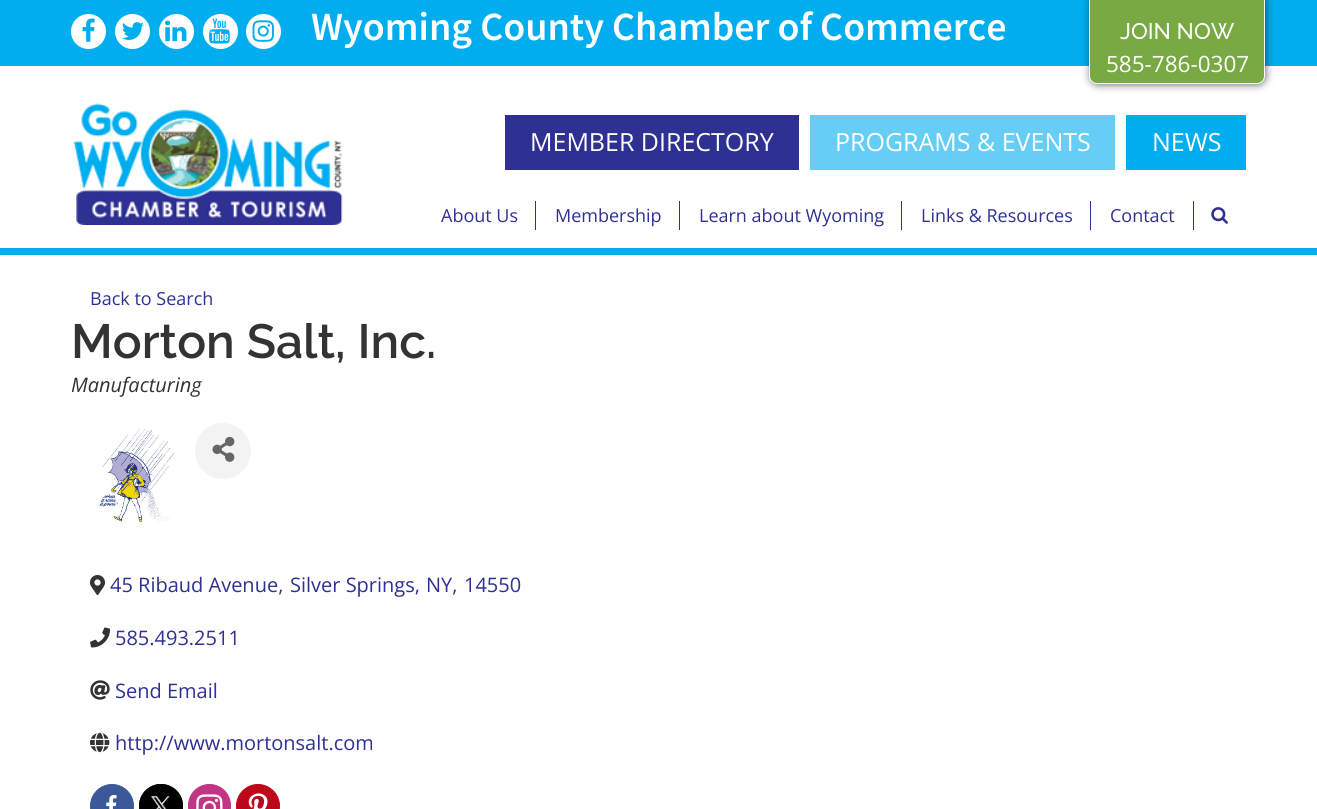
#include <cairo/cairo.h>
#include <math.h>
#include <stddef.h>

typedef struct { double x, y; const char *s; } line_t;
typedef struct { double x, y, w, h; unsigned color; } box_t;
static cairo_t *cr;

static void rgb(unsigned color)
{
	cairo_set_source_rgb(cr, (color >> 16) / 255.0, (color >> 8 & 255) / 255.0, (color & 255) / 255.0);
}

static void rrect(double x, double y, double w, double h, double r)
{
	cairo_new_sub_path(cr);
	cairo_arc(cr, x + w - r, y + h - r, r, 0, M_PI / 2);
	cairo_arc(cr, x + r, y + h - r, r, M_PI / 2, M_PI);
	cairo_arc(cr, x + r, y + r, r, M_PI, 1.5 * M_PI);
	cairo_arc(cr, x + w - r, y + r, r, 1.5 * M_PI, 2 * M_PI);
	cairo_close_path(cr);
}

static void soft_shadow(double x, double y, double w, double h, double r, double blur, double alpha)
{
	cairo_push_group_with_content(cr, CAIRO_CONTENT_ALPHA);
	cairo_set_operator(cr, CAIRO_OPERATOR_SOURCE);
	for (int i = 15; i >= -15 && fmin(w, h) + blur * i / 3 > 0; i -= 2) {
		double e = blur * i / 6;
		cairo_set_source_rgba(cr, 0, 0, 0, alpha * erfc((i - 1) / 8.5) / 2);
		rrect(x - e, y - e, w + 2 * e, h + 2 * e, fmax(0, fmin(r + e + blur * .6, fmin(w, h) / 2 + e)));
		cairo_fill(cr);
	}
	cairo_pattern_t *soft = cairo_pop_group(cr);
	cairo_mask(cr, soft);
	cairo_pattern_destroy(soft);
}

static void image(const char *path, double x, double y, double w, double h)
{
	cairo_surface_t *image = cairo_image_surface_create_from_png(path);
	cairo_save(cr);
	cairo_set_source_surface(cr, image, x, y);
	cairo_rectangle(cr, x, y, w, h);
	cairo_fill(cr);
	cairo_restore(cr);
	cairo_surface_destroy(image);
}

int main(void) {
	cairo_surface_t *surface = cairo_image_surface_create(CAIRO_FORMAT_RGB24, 1317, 809);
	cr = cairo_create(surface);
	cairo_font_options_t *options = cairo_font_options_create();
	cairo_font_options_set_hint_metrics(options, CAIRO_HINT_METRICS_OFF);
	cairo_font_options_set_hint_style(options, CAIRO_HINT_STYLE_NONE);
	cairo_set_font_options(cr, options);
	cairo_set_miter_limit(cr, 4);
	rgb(0xffffff);
	cairo_paint(cr);
	rgb(0x00aeef);
	cairo_rectangle(cr, 0, 248, 1317, 7);
	cairo_fill(cr);
	cairo_rectangle(cr, 0, 0, 1317, 66);
	cairo_fill(cr);
	rgb(0xffffff);
	cairo_arc(cr, 88.5, 31.5, 17.5, 0, 2 * M_PI);
	cairo_fill(cr);
	image("img/1.png", 82, 18, 13, 24);
	cairo_arc(cr, 132.5, 31.5, 17.5, 0, 2 * M_PI);
	cairo_fill(cr);
	image("img/2.png", 122, 22, 22, 18);
	cairo_arc(cr, 176.5, 31.5, 17.5, 0, 2 * M_PI);
	cairo_fill(cr);
	image("img/3.png", 165, 20, 22, 22);
	cairo_arc(cr, 220.5, 31.5, 17.5, 0, 2 * M_PI);
	cairo_fill(cr);
	image("img/4.png", 209, 18, 21, 26);
	cairo_arc(cr, 263.5, 31.5, 17.5, 0, 2 * M_PI);
	cairo_fill(cr);
	image("img/5.png", 252, 20, 22, 22);
	rgb(0x121212);
	soft_shadow(1090, -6, 176, 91, 8, 4, 0.6);
	rgb(0x78a942);
	rrect(1089.5, -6.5, 175, 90, 7.5);
	cairo_fill_preserve(cr);
	rgb(0xffffff);
	cairo_set_line_width(cr, 1);
	cairo_stroke(cr);
	image("img/6.png", 73, 103, 270, 122);
	{
		static const box_t items[] = {
			{505, 115, 294, 55, 0x2e3192},
			{810, 115, 305, 55, 0x66cef5},
			{1126, 115, 120, 55, 0x00aeef},
			{535, 201, 1, 29, 0x2e3192},
			{679, 201, 1, 29, 0x2e3192},
			{901, 201, 1, 29, 0x2e3192},
			{1090, 201, 1, 29, 0x2e3192},
			{1193, 201, 1, 29, 0x2e3192},
		};
		for (size_t i = 0; i < sizeof items / sizeof *items; i++) {
			rgb(items[i].color);
			cairo_rectangle(cr, items[i].x, items[i].y, items[i].w, items[i].h);
			cairo_fill(cr);
		}
	}
	image("img/7.png", 1211, 207, 17, 17);
	image("img/8.png", 98, 428, 77, 95);
	rgb(0xf3f3f3);
	cairo_arc(cr, 223, 451, 28, 0, 2 * M_PI);
	cairo_fill(cr);
	image("img/9.png", 212, 436, 23, 26);
	image("img/10.png", 90, 575, 15, 20);
	image("img/11.png", 90, 627, 20, 21);
	image("img/12.png", 90, 680, 20, 20);
	image("img/13.png", 90, 732, 20, 21);
	rgb(0x3b5998);
	cairo_arc(cr, 112, 806, 21.5, 0, 2 * M_PI);
	cairo_fill_preserve(cr);
	cairo_stroke(cr);
	image("img/14.png", 106, 795, 11, 14);
	rgb(0x000000);
	cairo_arc(cr, 161, 806, 22, 0, 2 * M_PI);
	cairo_fill(cr);
	image("img/15.png", 151, 796, 19, 13);
	cairo_arc(cr, 161, 806, 21.5, 0, 2 * M_PI);
	cairo_stroke(cr);
	rgb(0xc13584);
	rrect(188.5, 784.5, 42, 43, 21);
	cairo_fill_preserve(cr);
	cairo_stroke(cr);
	image("img/16.png", 196, 794, 27, 15);
	rgb(0xbd081c);
	cairo_arc(cr, 258, 806, 21.5, 0, 2 * M_PI);
	cairo_fill_preserve(cr);
	cairo_stroke(cr);
	image("img/17.png", 248, 793, 20, 16);
	cairo_select_font_face(cr, "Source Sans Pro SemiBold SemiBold", CAIRO_FONT_SLANT_NORMAL, CAIRO_FONT_WEIGHT_NORMAL);
	cairo_set_font_size(cr, 40);
	rgb(0xffffff);
	cairo_move_to(cr, 311, 40);
	cairo_show_text(cr, "Wyoming County Chamber of Commerce");
	cairo_select_font_face(cr, "Raleway Medium", CAIRO_FONT_SLANT_NORMAL, CAIRO_FONT_WEIGHT_NORMAL);
	cairo_set_font_size(cr, 22.5);
	cairo_move_to(cr, 1120, 39);
	cairo_show_text(cr, "JOIN NOW");
	cairo_select_font_face(cr, "Open Sans", CAIRO_FONT_SLANT_NORMAL, CAIRO_FONT_WEIGHT_NORMAL);
	cairo_move_to(cr, 1106, 72);
	cairo_show_text(cr, "585-786-0307");
	cairo_set_font_size(cr, 25);
	{
		static const line_t items[] = {
			{530, 151, "MEMBER DIRECTORY"},
			{835, 151, "PROGRAMS & EVENTS"},
			{1152, 151, "NEWS"},
		};
		for (size_t i = 0; i < sizeof items / sizeof *items; i++) {
			cairo_move_to(cr, items[i].x, items[i].y);
			cairo_show_text(cr, items[i].s);
		}
	}
	cairo_set_font_size(cr, 18);
	rgb(0x2e3192);
	{
		static const line_t items[] = {
			{441, 222, "About Us"},
			{555, 222, "Membership"},
			{699, 222, "Learn about Wyoming"},
			{921, 222, "Links & Resources"},
			{1110, 222, "Contact"},
			{90, 305, "Back to Search"},
		};
		for (size_t i = 0; i < sizeof items / sizeof *items; i++) {
			cairo_move_to(cr, items[i].x, items[i].y);
			cairo_show_text(cr, items[i].s);
		}
	}
	cairo_select_font_face(cr, "Raleway SemiBold", CAIRO_FONT_SLANT_NORMAL, CAIRO_FONT_WEIGHT_NORMAL);
	cairo_set_font_size(cr, 48);
	rgb(0x333333);
	cairo_move_to(cr, 71, 358);
	cairo_show_text(cr, "Morton Salt, Inc.");
	cairo_select_font_face(cr, "Open Sans", CAIRO_FONT_SLANT_ITALIC, CAIRO_FONT_WEIGHT_NORMAL);
	cairo_set_font_size(cr, 20);
	cairo_move_to(cr, 71, 392);
	cairo_show_text(cr, "Manufacturing");
	cairo_select_font_face(cr, "Open Sans", CAIRO_FONT_SLANT_NORMAL, CAIRO_FONT_WEIGHT_NORMAL);
	rgb(0x2e3192);
	{
		static const line_t items[] = {
			{110, 592, "45 Ribaud Avenue,"},
			{290, 592, "Silver Springs,"},
			{426, 592, "NY,"},
			{464, 592, "14550"},
			{115, 645, "585.493.2511"},
			{115, 698, "Send Email"},
			{115, 750, "http://www.mortonsalt.com"},
		};
		for (size_t i = 0; i < sizeof items / sizeof *items; i++) {
			cairo_move_to(cr, items[i].x, items[i].y);
			cairo_show_text(cr, items[i].s);
		}
	}
	cairo_surface_write_to_png(surface, "page.png");
	cairo_font_options_destroy(options);
	cairo_destroy(cr);
	cairo_surface_destroy(surface);
	return 0;
}
